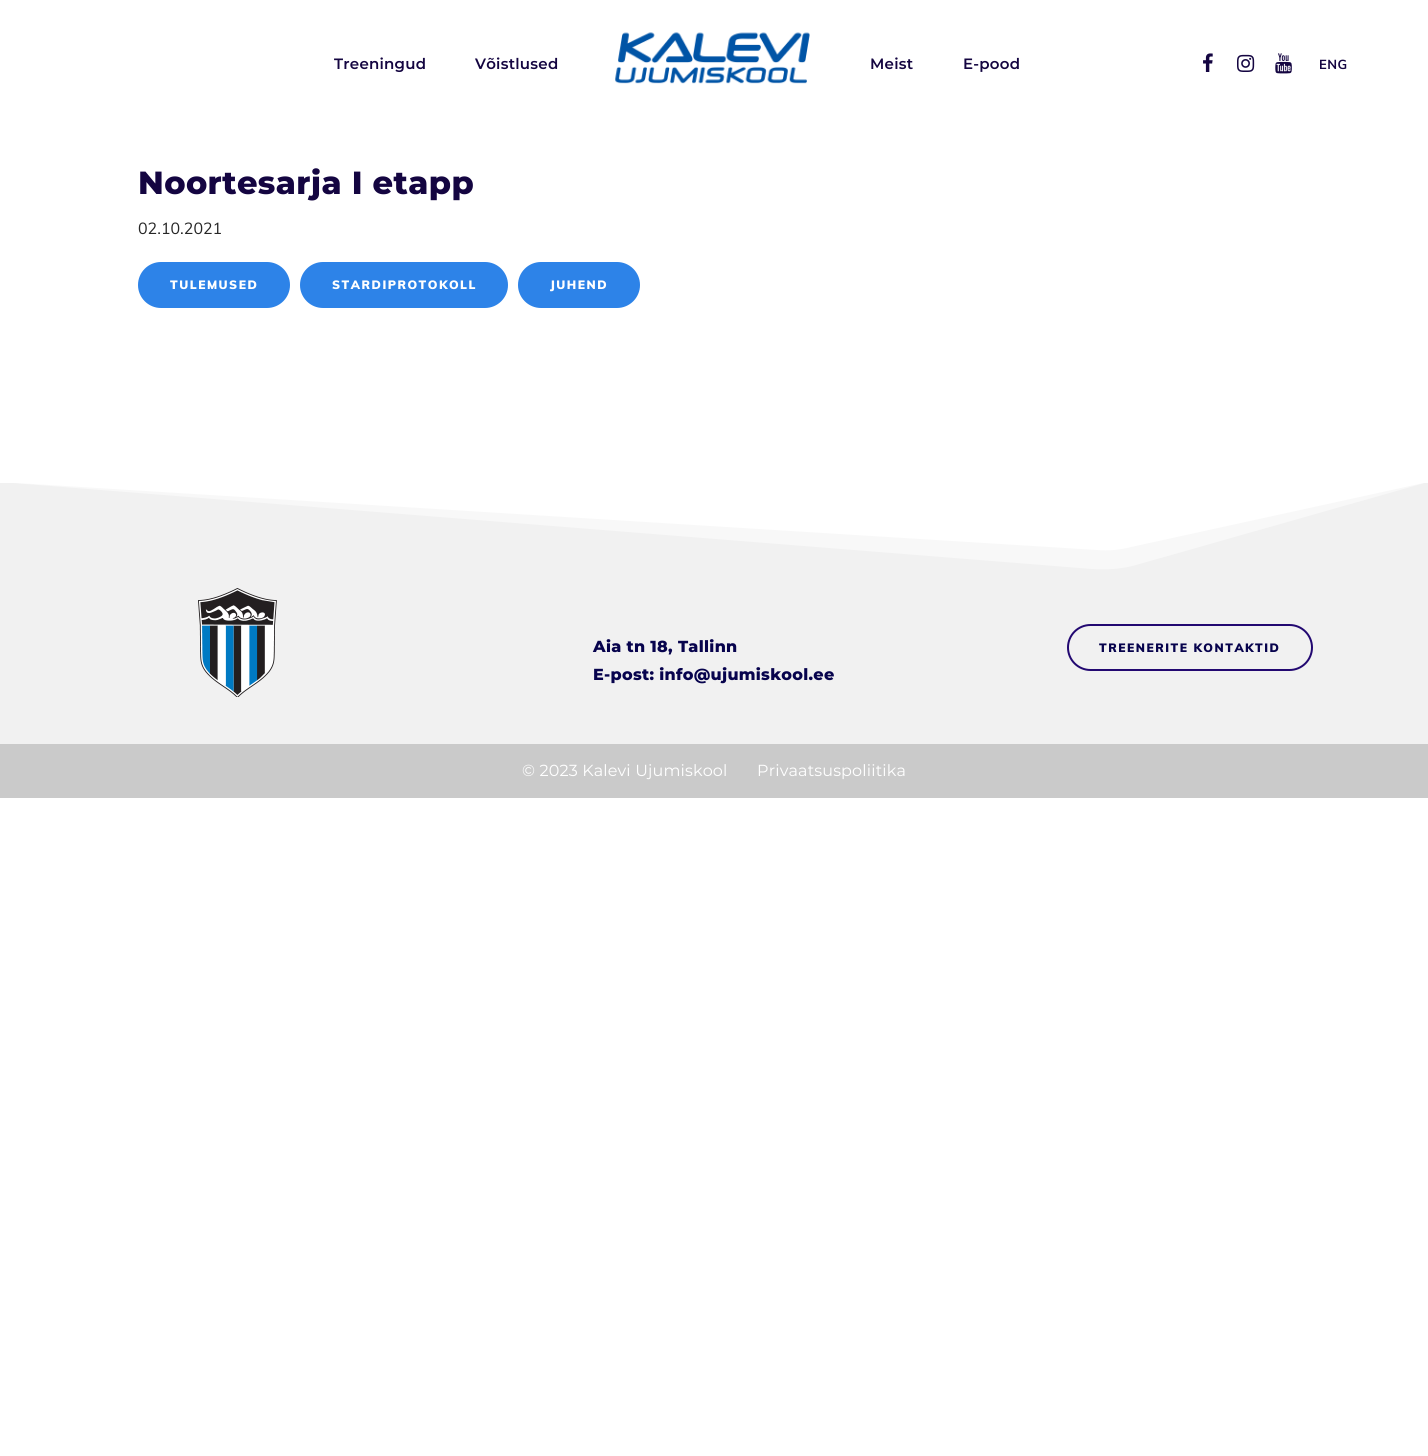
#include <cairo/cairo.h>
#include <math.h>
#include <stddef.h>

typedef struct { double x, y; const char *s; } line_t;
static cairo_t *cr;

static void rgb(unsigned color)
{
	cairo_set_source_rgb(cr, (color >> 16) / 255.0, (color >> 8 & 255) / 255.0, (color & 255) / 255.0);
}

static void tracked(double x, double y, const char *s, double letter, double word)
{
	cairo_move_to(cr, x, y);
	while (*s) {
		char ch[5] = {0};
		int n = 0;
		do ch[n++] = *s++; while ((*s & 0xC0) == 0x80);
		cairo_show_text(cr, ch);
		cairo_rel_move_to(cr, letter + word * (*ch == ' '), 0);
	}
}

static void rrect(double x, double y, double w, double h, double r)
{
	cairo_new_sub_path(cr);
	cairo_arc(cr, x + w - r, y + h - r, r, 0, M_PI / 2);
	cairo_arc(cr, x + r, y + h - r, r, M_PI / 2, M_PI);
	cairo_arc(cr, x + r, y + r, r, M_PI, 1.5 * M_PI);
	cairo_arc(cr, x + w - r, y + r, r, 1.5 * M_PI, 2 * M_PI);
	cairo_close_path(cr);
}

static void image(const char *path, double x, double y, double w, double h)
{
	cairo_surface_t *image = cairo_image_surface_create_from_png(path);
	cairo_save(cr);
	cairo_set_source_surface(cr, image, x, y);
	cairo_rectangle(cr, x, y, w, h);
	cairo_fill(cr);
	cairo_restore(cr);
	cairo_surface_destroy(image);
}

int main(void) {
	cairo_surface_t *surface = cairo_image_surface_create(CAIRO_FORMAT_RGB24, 1428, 1456);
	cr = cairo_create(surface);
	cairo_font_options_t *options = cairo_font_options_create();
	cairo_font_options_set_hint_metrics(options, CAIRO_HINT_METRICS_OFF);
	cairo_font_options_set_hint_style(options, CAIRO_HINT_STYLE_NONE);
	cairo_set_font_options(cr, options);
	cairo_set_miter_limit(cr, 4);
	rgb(0xffffff);
	cairo_paint(cr);
	image("img/1.png", 615, 32, 195, 52);
	image("img/2.png", 1203, 53, 10, 19);
	image("img/3.png", 1237, 54, 18, 18);
	image("img/4.png", 1275, 53, 17, 21);
	rgb(0x2d83e8);
	rrect(139, 263, 150, 44, 22);
	cairo_fill_preserve(cr);
	cairo_stroke(cr);
	rrect(301, 263, 206, 44, 22);
	cairo_fill_preserve(cr);
	cairo_stroke(cr);
	rrect(519, 263, 120, 44, 22);
	cairo_fill_preserve(cr);
	cairo_stroke(cr);
	rgb(0xf1f1f1);
	cairo_rectangle(cr, 0, 483, 1428, 261);
	cairo_fill(cr);
	cairo_set_source_rgba(cr, 1, 1, 1, 0.5);
	cairo_new_path(cr);
	cairo_move_to(cr, 1092, 569);
	cairo_line_to(cr, 0, 482);
	cairo_line_to(cr, 1428, 482);
	cairo_line_to(cr, 1136, 565);
	cairo_curve_to(cr, 1122, 569, 1107, 570, 1092, 569);
	cairo_close_path(cr);
	cairo_fill(cr);
	rgb(0xffffff);
	cairo_new_path(cr);
	cairo_move_to(cr, 1097, 550);
	cairo_line_to(cr, 0, 482);
	cairo_line_to(cr, 1428, 482);
	cairo_line_to(cr, 1131, 547);
	cairo_curve_to(cr, 1120, 550, 1108, 551, 1097, 550);
	cairo_close_path(cr);
	cairo_fill(cr);
	image("img/5.png", 198, 588, 79, 109);
	rrect(1068, 625, 244, 45, 22.5);
	rgb(0x220871);
	cairo_stroke(cr);
	rgb(0xcacaca);
	cairo_rectangle(cr, 0, 744, 1428, 54);
	cairo_fill(cr);
	cairo_select_font_face(cr, "Montserrat SemiBold", CAIRO_FONT_SLANT_NORMAL, CAIRO_FONT_WEIGHT_NORMAL);
	cairo_set_font_size(cr, 15);
	rgb(0x140541);
	{
		static const line_t items[] = {
			{334, 69, "Treeningud"},
			{475, 69, "Võistlused"},
			{870, 69, "Meist"},
			{963, 69, "E-pood"},
		};
		for (size_t i = 0; i < sizeof items / sizeof *items; i++) {
			tracked(items[i].x, items[i].y, items[i].s, 0.25, 0);
		}
	}
	cairo_select_font_face(cr, "Muli", CAIRO_FONT_SLANT_NORMAL, CAIRO_FONT_WEIGHT_BOLD);
	cairo_set_font_size(cr, 13);
	tracked(1319, 69, "ENG", 0.5, 0);
	cairo_select_font_face(cr, "Montserrat ExtraBold", CAIRO_FONT_SLANT_NORMAL, CAIRO_FONT_WEIGHT_NORMAL);
	cairo_set_font_size(cr, 32);
	tracked(138, 194, "Noortesarja I etapp", 0.4, 0);
	cairo_select_font_face(cr, "Muli", CAIRO_FONT_SLANT_NORMAL, CAIRO_FONT_WEIGHT_NORMAL);
	cairo_set_font_size(cr, 16);
	rgb(0x272727);
	cairo_move_to(cr, 138, 234);
	cairo_show_text(cr, "02.10.2021");
	cairo_select_font_face(cr, "Muli Black", CAIRO_FONT_SLANT_NORMAL, CAIRO_FONT_WEIGHT_NORMAL);
	cairo_set_font_size(cr, 12);
	rgb(0xffffff);
	{
		static const line_t items[] = {
			{170, 289, "TULEMUSED"},
			{332, 289, "STARDIPROTOKOLL"},
			{550, 289, "JUHEND"},
		};
		for (size_t i = 0; i < sizeof items / sizeof *items; i++) {
			tracked(items[i].x, items[i].y, items[i].s, 1.5, 0);
		}
	}
	cairo_select_font_face(cr, "Montserrat ExtraBold", CAIRO_FONT_SLANT_NORMAL, CAIRO_FONT_WEIGHT_NORMAL);
	cairo_set_font_size(cr, 16);
	rgb(0x07034d);
	tracked(593, 652, "Aia tn 18, Tallinn", 0.3, 0);
	tracked(593, 680, "E-post: info@ujumiskool.ee", 0.3, 0);
	cairo_select_font_face(cr, "Muli Black", CAIRO_FONT_SLANT_NORMAL, CAIRO_FONT_WEIGHT_NORMAL);
	cairo_set_font_size(cr, 12);
	tracked(1099, 652, "TREENERITE KONTAKTID", 1.5, 0);
	cairo_select_font_face(cr, "Montserrat", CAIRO_FONT_SLANT_NORMAL, CAIRO_FONT_WEIGHT_NORMAL);
	cairo_set_font_size(cr, 16);
	rgb(0xffffff);
	tracked(522, 776, "© 2023 Kalevi Ujumiskool", 0.15, 0);
	tracked(757, 776, "Privaatsuspoliitika", 0.15, 0);
	cairo_surface_write_to_png(surface, "page.png");
	cairo_font_options_destroy(options);
	cairo_destroy(cr);
	cairo_surface_destroy(surface);
	return 0;
}
